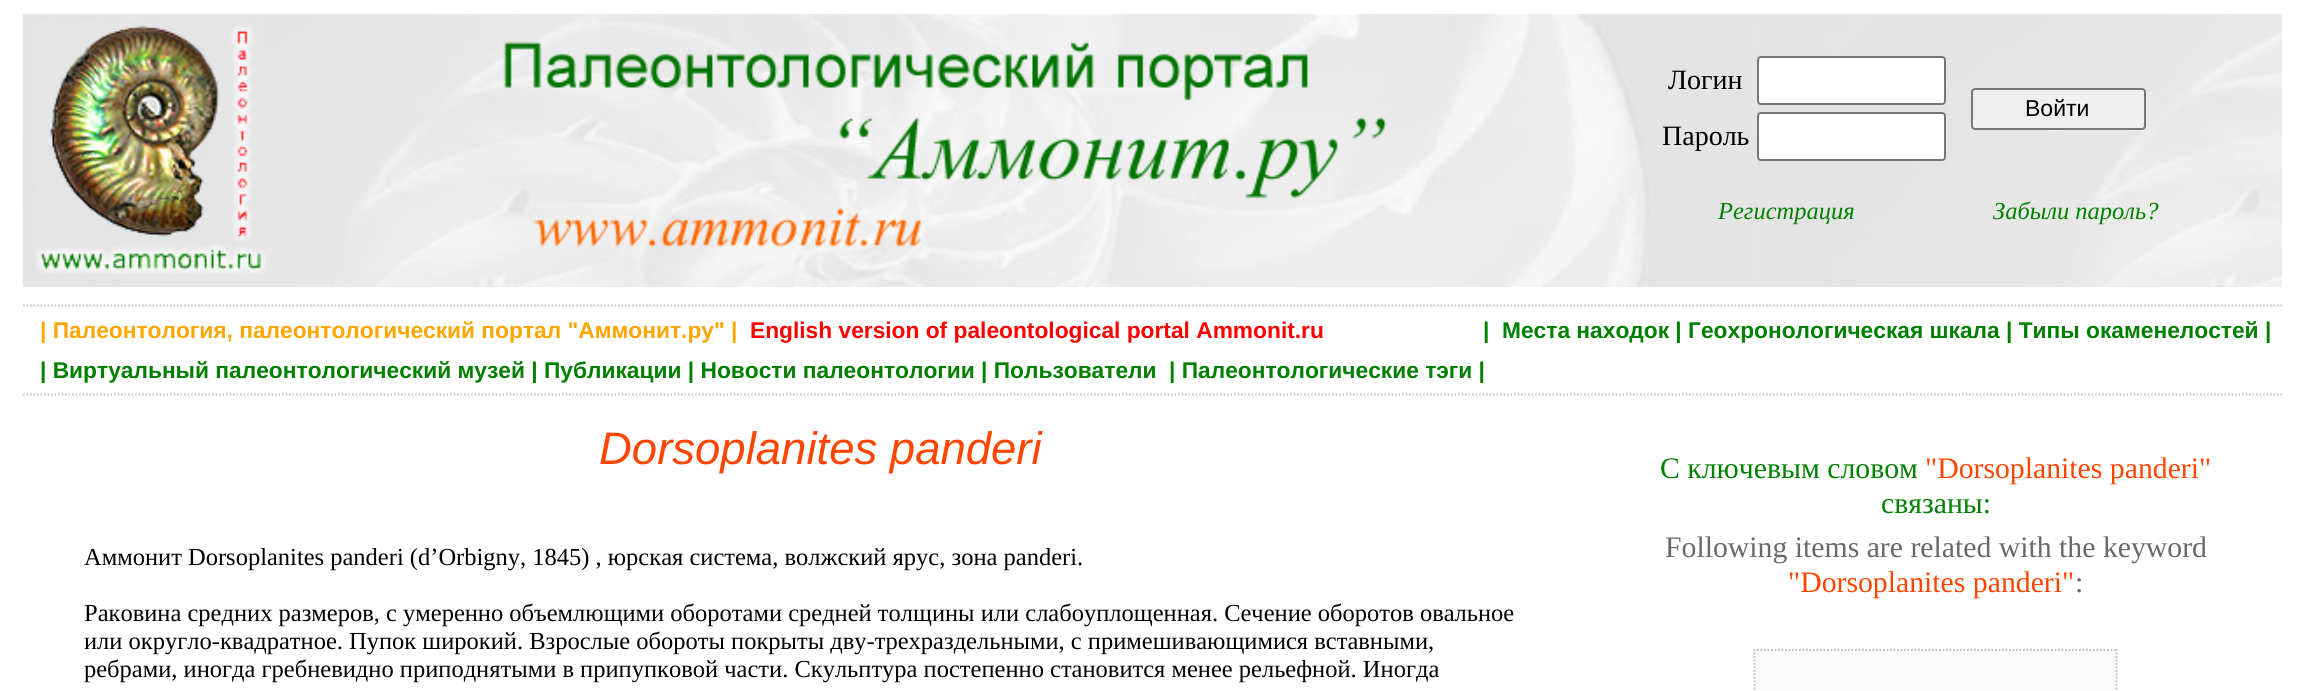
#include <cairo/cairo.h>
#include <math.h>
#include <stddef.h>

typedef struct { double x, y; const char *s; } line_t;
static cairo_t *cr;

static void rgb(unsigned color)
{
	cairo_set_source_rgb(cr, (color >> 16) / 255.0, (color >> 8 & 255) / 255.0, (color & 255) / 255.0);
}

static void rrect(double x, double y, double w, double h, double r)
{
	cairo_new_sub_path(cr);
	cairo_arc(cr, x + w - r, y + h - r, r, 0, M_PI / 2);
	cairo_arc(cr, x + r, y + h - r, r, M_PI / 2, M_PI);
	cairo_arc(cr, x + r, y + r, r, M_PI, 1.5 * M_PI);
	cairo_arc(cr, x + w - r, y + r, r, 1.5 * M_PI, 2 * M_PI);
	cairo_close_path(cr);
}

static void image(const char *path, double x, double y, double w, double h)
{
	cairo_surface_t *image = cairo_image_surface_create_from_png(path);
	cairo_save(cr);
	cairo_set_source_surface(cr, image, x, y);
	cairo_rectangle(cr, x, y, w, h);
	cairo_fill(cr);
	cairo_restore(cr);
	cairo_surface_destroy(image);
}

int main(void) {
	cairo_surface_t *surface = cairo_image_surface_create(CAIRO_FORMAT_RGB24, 2304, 691);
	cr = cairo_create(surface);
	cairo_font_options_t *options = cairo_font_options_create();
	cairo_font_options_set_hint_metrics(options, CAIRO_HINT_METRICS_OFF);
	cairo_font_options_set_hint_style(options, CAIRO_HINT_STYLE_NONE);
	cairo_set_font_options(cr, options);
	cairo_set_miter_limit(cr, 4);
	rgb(0xffffff);
	cairo_paint(cr);
	image("img/1.png", 22, 14, 2260, 273);
	image("img/2.png", 35, 20, 231, 254);
	image("img/3.png", 503, 41, 884, 207);
	rgb(0xffffff);
	rrect(1758, 57, 187, 47, 3);
	cairo_fill_preserve(cr);
	rgb(0x767676);
	cairo_stroke(cr);
	rgb(0xffffff);
	rrect(1758, 113, 187, 47, 3);
	cairo_fill_preserve(cr);
	rgb(0x767676);
	cairo_stroke(cr);
	rgb(0xefefef);
	rrect(1972, 89, 173, 40, 3);
	cairo_fill_preserve(cr);
	rgb(0x767676);
	cairo_stroke(cr);
	cairo_new_path(cr);
	cairo_move_to(cr, 23, 305.5);
	cairo_line_to(cr, 2282, 305.5);
	rgb(0xc0c0c0);
	cairo_set_line_width(cr, 1.8);
	cairo_set_dash(cr, (double[]){1.75, 1.75}, 2, 0);
	cairo_stroke(cr);
	cairo_new_path(cr);
	cairo_move_to(cr, 23, 394.5);
	cairo_line_to(cr, 2282, 394.5);
	cairo_stroke(cr);
	rgb(0xfafafa);
	cairo_rectangle(cr, 1754, 649, 364, 42);
	cairo_fill(cr);
	cairo_new_path(cr);
	cairo_move_to(cr, 1753.5, 650);
	cairo_line_to(cr, 2117.5, 650);
	rgb(0xc0c0c0);
	cairo_stroke(cr);
	cairo_new_path(cr);
	cairo_move_to(cr, 2116.5, 649);
	cairo_line_to(cr, 2116.5, 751);
	cairo_stroke(cr);
	cairo_new_path(cr);
	cairo_move_to(cr, 1754.5, 649);
	cairo_line_to(cr, 1754.5, 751);
	cairo_stroke(cr);
	cairo_select_font_face(cr, "Liberation Serif", CAIRO_FONT_SLANT_NORMAL, CAIRO_FONT_WEIGHT_NORMAL);
	cairo_set_font_size(cr, 28);
	rgb(0x000000);
	cairo_move_to(cr, 1668, 89);
	cairo_show_text(cr, "Логин");
	cairo_move_to(cr, 1662, 145);
	cairo_show_text(cr, "Пароль");
	cairo_select_font_face(cr, "Liberation Sans", CAIRO_FONT_SLANT_NORMAL, CAIRO_FONT_WEIGHT_NORMAL);
	cairo_set_font_size(cr, 23);
	cairo_move_to(cr, 2025, 116);
	cairo_show_text(cr, "Войти");
	cairo_select_font_face(cr, "Liberation Serif", CAIRO_FONT_SLANT_ITALIC, CAIRO_FONT_WEIGHT_NORMAL);
	cairo_set_font_size(cr, 24.5);
	rgb(0x008000);
	cairo_move_to(cr, 1718, 219);
	cairo_show_text(cr, "Регистрация");
	cairo_move_to(cr, 1993, 219);
	cairo_show_text(cr, "Забыли пароль?");
	cairo_select_font_face(cr, "Liberation Sans", CAIRO_FONT_SLANT_NORMAL, CAIRO_FONT_WEIGHT_BOLD);
	cairo_set_font_size(cr, 22.75);
	rgb(0xffa500);
	cairo_move_to(cr, 40, 338);
	cairo_show_text(cr, "| Палеонтология, палеонтологический портал \"Аммонит.ру\" |");
	rgb(0xff0000);
	cairo_move_to(cr, 750, 338);
	cairo_show_text(cr, "English version of paleontological portal Ammonit.ru");
	rgb(0x008000);
	{
		static const line_t items[] = {
			{1483, 338, "|"},
			{1502, 338, "Места находок | Геохронологическая шкала | Типы окаменелостей |"},
			{40, 378, "| Виртуальный палеонтологический музей | Публикации | Новости палеонтологии | Пользователи"},
			{1169, 378, "| Палеонтологические тэги |"},
		};
		for (size_t i = 0; i < sizeof items / sizeof *items; i++) {
			cairo_move_to(cr, items[i].x, items[i].y);
			cairo_show_text(cr, items[i].s);
		}
	}
	cairo_select_font_face(cr, "Liberation Sans", CAIRO_FONT_SLANT_ITALIC, CAIRO_FONT_WEIGHT_NORMAL);
	cairo_set_font_size(cr, 45.5);
	rgb(0xff4500);
	cairo_move_to(cr, 599, 464);
	cairo_show_text(cr, "Dorsoplanites panderi");
	cairo_select_font_face(cr, "Liberation Serif", CAIRO_FONT_SLANT_NORMAL, CAIRO_FONT_WEIGHT_NORMAL);
	cairo_set_font_size(cr, 24.5);
	rgb(0x000000);
	{
		static const line_t items[] = {
			{84, 565, "Аммонит Dorsoplanites panderi (d’Orbigny, 1845) , юрская система, волжский ярус, зона panderi."},
			{84, 621, "Раковина средних размеров, с умеренно объемлющими оборотами средней толщины или слабоуплощенная. Сечение оборотов овальное"},
			{84, 649, "или округло-квадратное. Пупок широкий. Взрослые обороты покрыты дву-трехраздельными, с примешивающимися вставными,"},
			{84, 677, "ребрами, иногда гребневидно приподнятыми в припупковой части. Скульптура постепенно становится менее рельефной. Иногда"},
		};
		for (size_t i = 0; i < sizeof items / sizeof *items; i++) {
			cairo_move_to(cr, items[i].x, items[i].y);
			cairo_show_text(cr, items[i].s);
		}
	}
	cairo_set_font_size(cr, 29.75);
	rgb(0x008000);
	cairo_move_to(cr, 1660, 478);
	cairo_show_text(cr, "С ключевым словом");
	rgb(0xff4500);
	cairo_move_to(cr, 1925, 478);
	cairo_show_text(cr, "\"Dorsoplanites panderi\"");
	rgb(0x008000);
	cairo_move_to(cr, 1881, 513);
	cairo_show_text(cr, "связаны:");
	rgb(0x696969);
	cairo_move_to(cr, 1665, 557);
	cairo_show_text(cr, "Following items are related with the keyword");
	rgb(0xff4500);
	cairo_move_to(cr, 1788, 592);
	cairo_show_text(cr, "\"Dorsoplanites panderi\"");
	rgb(0x696969);
	cairo_move_to(cr, 2075, 592);
	cairo_show_text(cr, ":");
	cairo_surface_write_to_png(surface, "page.png");
	cairo_font_options_destroy(options);
	cairo_destroy(cr);
	cairo_surface_destroy(surface);
	return 0;
}
